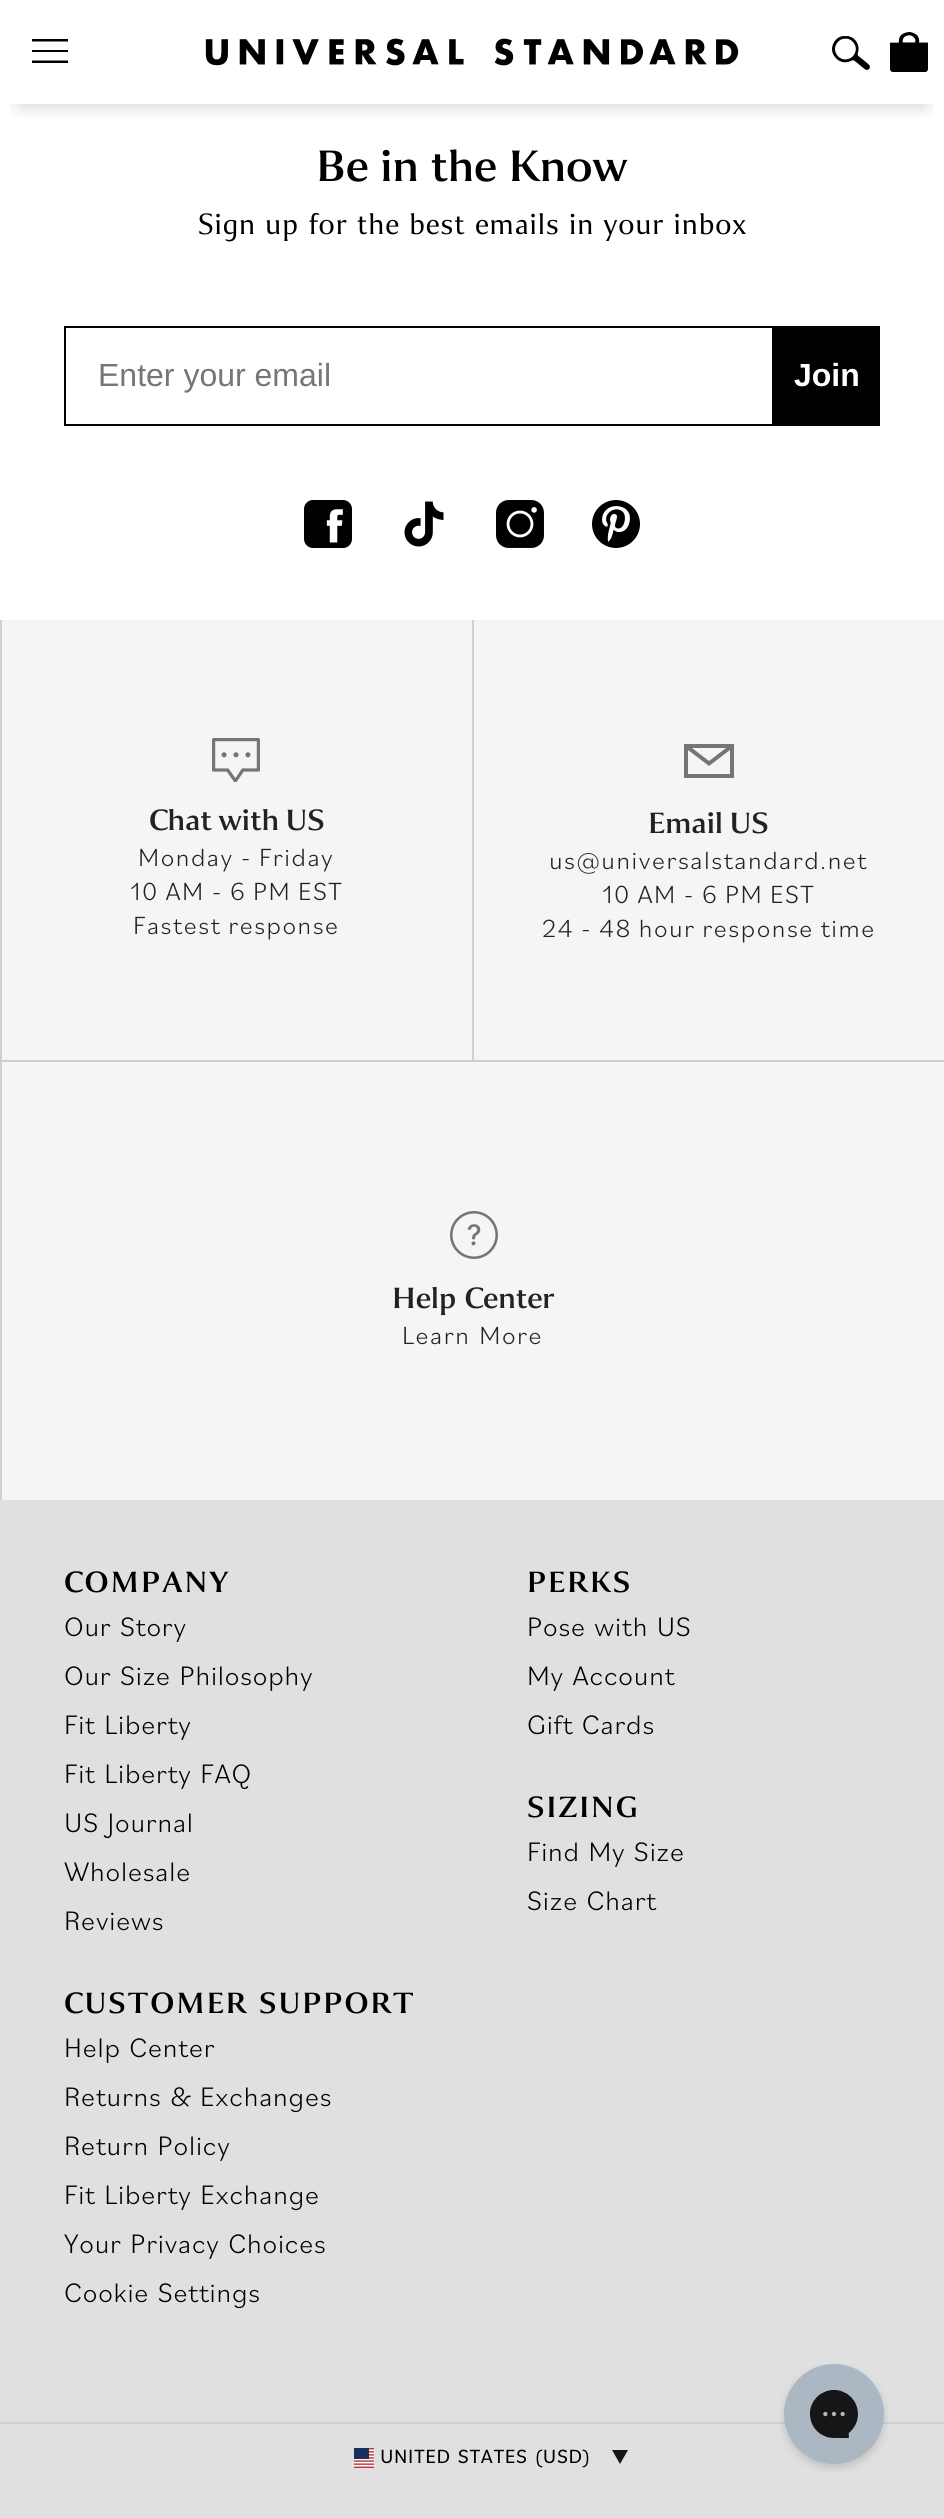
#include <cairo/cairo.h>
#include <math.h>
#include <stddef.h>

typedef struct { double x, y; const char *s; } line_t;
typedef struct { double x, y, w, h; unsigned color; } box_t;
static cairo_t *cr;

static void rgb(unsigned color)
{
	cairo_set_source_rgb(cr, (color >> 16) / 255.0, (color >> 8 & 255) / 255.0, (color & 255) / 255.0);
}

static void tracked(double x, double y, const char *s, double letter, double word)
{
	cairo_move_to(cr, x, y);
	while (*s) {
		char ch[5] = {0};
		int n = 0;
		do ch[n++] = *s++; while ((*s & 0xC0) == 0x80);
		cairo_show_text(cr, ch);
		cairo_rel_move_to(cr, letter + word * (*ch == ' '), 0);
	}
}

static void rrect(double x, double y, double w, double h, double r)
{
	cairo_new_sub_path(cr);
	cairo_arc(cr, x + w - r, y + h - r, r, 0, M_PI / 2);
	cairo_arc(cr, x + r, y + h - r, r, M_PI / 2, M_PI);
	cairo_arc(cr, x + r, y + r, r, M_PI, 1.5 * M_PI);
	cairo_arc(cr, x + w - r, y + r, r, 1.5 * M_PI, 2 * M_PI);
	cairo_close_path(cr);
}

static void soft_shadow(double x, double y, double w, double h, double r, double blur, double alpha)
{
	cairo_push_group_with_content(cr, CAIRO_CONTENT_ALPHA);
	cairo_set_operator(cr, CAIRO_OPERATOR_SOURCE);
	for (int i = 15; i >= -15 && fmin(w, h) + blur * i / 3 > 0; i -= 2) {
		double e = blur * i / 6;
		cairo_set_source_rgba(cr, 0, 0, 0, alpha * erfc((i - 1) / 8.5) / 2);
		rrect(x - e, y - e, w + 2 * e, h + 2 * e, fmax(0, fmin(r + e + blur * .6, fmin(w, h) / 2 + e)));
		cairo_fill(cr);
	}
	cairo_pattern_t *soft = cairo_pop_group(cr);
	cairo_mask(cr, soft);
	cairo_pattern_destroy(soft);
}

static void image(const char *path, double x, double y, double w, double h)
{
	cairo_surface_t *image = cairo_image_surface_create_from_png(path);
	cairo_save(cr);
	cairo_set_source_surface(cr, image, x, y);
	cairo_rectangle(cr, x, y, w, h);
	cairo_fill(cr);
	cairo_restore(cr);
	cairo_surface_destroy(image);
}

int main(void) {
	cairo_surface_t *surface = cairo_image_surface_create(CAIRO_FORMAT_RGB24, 944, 2518);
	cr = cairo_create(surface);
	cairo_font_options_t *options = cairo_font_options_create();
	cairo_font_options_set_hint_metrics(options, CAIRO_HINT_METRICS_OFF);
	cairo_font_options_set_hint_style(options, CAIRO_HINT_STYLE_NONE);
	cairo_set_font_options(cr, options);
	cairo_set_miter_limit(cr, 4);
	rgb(0xffffff);
	cairo_paint(cr);
	cairo_save(cr);
	cairo_rectangle(cr, 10, 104, 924, 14);
	cairo_clip(cr);
	rgb(0x212326);
	soft_shadow(20, 40, 904, 64, 0, 10, 0.25);
	cairo_restore(cr);
	rgb(0x000000);
	cairo_new_path(cr);
	cairo_move_to(cr, 68, 39);
	cairo_line_to(cr, 68, 41.5);
	cairo_line_to(cr, 32, 41.5);
	cairo_line_to(cr, 32, 39);
	cairo_close_path(cr);
	cairo_move_to(cr, 68, 50);
	cairo_line_to(cr, 68, 52);
	cairo_line_to(cr, 32, 52);
	cairo_line_to(cr, 32, 50);
	cairo_close_path(cr);
	cairo_move_to(cr, 68, 60.5);
	cairo_line_to(cr, 68, 63);
	cairo_line_to(cr, 32, 63);
	cairo_line_to(cr, 32, 60.5);
	cairo_close_path(cr);
	cairo_fill(cr);
	image("img/1.png", 205, 38, 534, 28);
	image("img/2.png", 832, 36, 38, 34);
	image("img/3.png", 890, 32, 38, 40);
	cairo_rectangle(cr, 65, 327, 708, 98);
	cairo_stroke(cr);
	cairo_rectangle(cr, 774, 326, 106, 100);
	cairo_fill(cr);
	image("img/4.png", 304, 500, 48, 48);
	image("img/5.png", 404, 501, 40, 46);
	image("img/6.png", 496, 500, 48, 48);
	image("img/7.png", 592, 500, 48, 48);
	{
		static const box_t items[] = {
			{2, 620, 942, 880, 0xf5f5f5},
			{0, 620, 2, 880, 0xcfcfcf},
			{472, 620, 2, 440, 0xcfcfcf},
		};
		for (size_t i = 0; i < sizeof items / sizeof *items; i++) {
			rgb(items[i].color);
			cairo_rectangle(cr, items[i].x, items[i].y, items[i].w, items[i].h);
			cairo_fill(cr);
		}
	}
	image("img/8.png", 212, 738, 48, 44);
	rgb(0x757575);
	cairo_new_path(cr);
	cairo_move_to(cr, 734, 744);
	cairo_line_to(cr, 734, 778);
	cairo_line_to(cr, 684, 778);
	cairo_line_to(cr, 684, 744);
	cairo_close_path(cr);
	cairo_move_to(cr, 692, 748);
	cairo_line_to(cr, 709, 761);
	cairo_line_to(cr, 726, 748);
	cairo_close_path(cr);
	cairo_move_to(cr, 730, 750);
	cairo_line_to(cr, 709, 766);
	cairo_line_to(cr, 688, 750);
	cairo_line_to(cr, 688, 774);
	cairo_line_to(cr, 730, 774);
	cairo_close_path(cr);
	cairo_fill(cr);
	rgb(0xcfcfcf);
	cairo_rectangle(cr, 2, 1060, 942, 2);
	cairo_fill(cr);
	image("img/9.png", 450, 1211, 48, 48);
	{
		static const box_t items[] = {
			{0, 1500, 944, 922, 0xe0e0e0},
			{0, 2422, 944, 2, 0xcfcfcf},
			{0, 2424, 944, 94, 0xe0e0e0},
		};
		for (size_t i = 0; i < sizeof items / sizeof *items; i++) {
			rgb(items[i].color);
			cairo_rectangle(cr, items[i].x, items[i].y, items[i].w, items[i].h);
			cairo_fill(cr);
		}
	}
	image("img/10.png", 354, 2448, 20, 20);
	rgb(0x171717);
	cairo_new_path(cr);
	cairo_move_to(cr, 612, 2450);
	cairo_line_to(cr, 628, 2450);
	cairo_line_to(cr, 620, 2464);
	cairo_close_path(cr);
	cairo_fill(cr);
	image("img/11.png", 780, 2364, 108, 108);
	cairo_select_font_face(cr, "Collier", CAIRO_FONT_SLANT_NORMAL, CAIRO_FONT_WEIGHT_NORMAL);
	cairo_set_font_size(cr, 48);
	rgb(0x000000);
	tracked(316, 181, "Be in the Know", 0, 2);
	cairo_select_font_face(cr, "Collier Light", CAIRO_FONT_SLANT_NORMAL, CAIRO_FONT_WEIGHT_NORMAL);
	cairo_set_font_size(cr, 32);
	tracked(198, 234, "Sign up for the best emails in your inbox", 1, 2);
	cairo_select_font_face(cr, "Liberation Sans", CAIRO_FONT_SLANT_NORMAL, CAIRO_FONT_WEIGHT_NORMAL);
	rgb(0x767676);
	cairo_move_to(cr, 98, 386);
	cairo_show_text(cr, "Enter your email");
	cairo_select_font_face(cr, "Liberation Sans", CAIRO_FONT_SLANT_NORMAL, CAIRO_FONT_WEIGHT_BOLD);
	rgb(0xffffff);
	cairo_move_to(cr, 794, 386);
	cairo_show_text(cr, "Join");
	cairo_select_font_face(cr, "Collier", CAIRO_FONT_SLANT_NORMAL, CAIRO_FONT_WEIGHT_NORMAL);
	rgb(0x222222);
	cairo_move_to(cr, 149, 830);
	cairo_show_text(cr, "Chat with US");
	cairo_select_font_face(cr, "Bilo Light", CAIRO_FONT_SLANT_NORMAL, CAIRO_FONT_WEIGHT_NORMAL);
	cairo_set_font_size(cr, 26);
	{
		static const line_t items[] = {
			{138, 866, "Monday - Friday"},
			{130, 900, "10 AM - 6 PM EST"},
			{133, 934, "Fastest response"},
		};
		for (size_t i = 0; i < sizeof items / sizeof *items; i++) {
			tracked(items[i].x, items[i].y, items[i].s, 1.5, 0);
		}
	}
	cairo_select_font_face(cr, "Collier", CAIRO_FONT_SLANT_NORMAL, CAIRO_FONT_WEIGHT_NORMAL);
	cairo_set_font_size(cr, 32);
	cairo_move_to(cr, 648, 833);
	cairo_show_text(cr, "Email US");
	cairo_select_font_face(cr, "Bilo Light", CAIRO_FONT_SLANT_NORMAL, CAIRO_FONT_WEIGHT_NORMAL);
	cairo_set_font_size(cr, 26);
	{
		static const line_t items[] = {
			{549, 869, "us@universalstandard.net"},
			{602, 903, "10 AM - 6 PM EST"},
			{542, 937, "24 - 48 hour response time"},
		};
		for (size_t i = 0; i < sizeof items / sizeof *items; i++) {
			tracked(items[i].x, items[i].y, items[i].s, 1.5, 0);
		}
	}
	cairo_select_font_face(cr, "Collier", CAIRO_FONT_SLANT_NORMAL, CAIRO_FONT_WEIGHT_NORMAL);
	cairo_set_font_size(cr, 32);
	tracked(392, 1308, "Help Center", 0, 2);
	cairo_select_font_face(cr, "Bilo Light", CAIRO_FONT_SLANT_NORMAL, CAIRO_FONT_WEIGHT_NORMAL);
	cairo_set_font_size(cr, 26);
	tracked(402, 1344, "Learn More", 1.5, 2);
	cairo_select_font_face(cr, "Collier", CAIRO_FONT_SLANT_NORMAL, CAIRO_FONT_WEIGHT_NORMAL);
	cairo_set_font_size(cr, 32);
	rgb(0x000000);
	tracked(64, 1592, "COMPANY", 2, 0);
	cairo_select_font_face(cr, "Bilo Light", CAIRO_FONT_SLANT_NORMAL, CAIRO_FONT_WEIGHT_NORMAL);
	cairo_set_font_size(cr, 28);
	{
		static const line_t items[] = {
			{64, 1636, "Our Story"},
			{64, 1685, "Our Size Philosophy"},
			{64, 1734, "Fit Liberty"},
			{64, 1783, "Fit Liberty FAQ"},
			{64, 1832, "US Journal"},
		};
		for (size_t i = 0; i < sizeof items / sizeof *items; i++) {
			tracked(items[i].x, items[i].y, items[i].s, 0.8, 2);
		}
	}
	tracked(64, 1881, "Wholesale", 0.8, 0);
	tracked(64, 1930, "Reviews", 0.8, 0);
	cairo_select_font_face(cr, "Collier", CAIRO_FONT_SLANT_NORMAL, CAIRO_FONT_WEIGHT_NORMAL);
	cairo_set_font_size(cr, 32);
	tracked(64, 2013, "CUSTOMER SUPPORT", 2, 2);
	cairo_select_font_face(cr, "Bilo Light", CAIRO_FONT_SLANT_NORMAL, CAIRO_FONT_WEIGHT_NORMAL);
	cairo_set_font_size(cr, 28);
	{
		static const line_t items[] = {
			{64, 2057, "Help Center"},
			{64, 2106, "Returns & Exchanges"},
			{64, 2155, "Return Policy"},
			{64, 2204, "Fit Liberty Exchange"},
			{64, 2253, "Your Privacy Choices"},
			{64, 2302, "Cookie Settings"},
		};
		for (size_t i = 0; i < sizeof items / sizeof *items; i++) {
			tracked(items[i].x, items[i].y, items[i].s, 0.8, 2);
		}
	}
	cairo_select_font_face(cr, "Collier", CAIRO_FONT_SLANT_NORMAL, CAIRO_FONT_WEIGHT_NORMAL);
	cairo_set_font_size(cr, 32);
	tracked(527, 1592, "PERKS", 2, 0);
	cairo_select_font_face(cr, "Bilo Light", CAIRO_FONT_SLANT_NORMAL, CAIRO_FONT_WEIGHT_NORMAL);
	cairo_set_font_size(cr, 28);
	{
		static const line_t items[] = {
			{527, 1636, "Pose with US"},
			{527, 1685, "My Account"},
			{527, 1734, "Gift Cards"},
		};
		for (size_t i = 0; i < sizeof items / sizeof *items; i++) {
			tracked(items[i].x, items[i].y, items[i].s, 0.8, 2);
		}
	}
	cairo_select_font_face(cr, "Collier", CAIRO_FONT_SLANT_NORMAL, CAIRO_FONT_WEIGHT_NORMAL);
	cairo_set_font_size(cr, 32);
	tracked(527, 1817, "SIZING", 2, 0);
	cairo_select_font_face(cr, "Bilo Light", CAIRO_FONT_SLANT_NORMAL, CAIRO_FONT_WEIGHT_NORMAL);
	cairo_set_font_size(cr, 28);
	tracked(527, 1861, "Find My Size", 0.8, 2);
	tracked(527, 1910, "Size Chart", 0.8, 2);
	cairo_select_font_face(cr, "Bilo", CAIRO_FONT_SLANT_NORMAL, CAIRO_FONT_WEIGHT_NORMAL);
	cairo_set_font_size(cr, 20);
	tracked(380, 2463, "UNITED STATES (USD)", 0.6, 2);
	cairo_surface_write_to_png(surface, "page.png");
	cairo_font_options_destroy(options);
	cairo_destroy(cr);
	cairo_surface_destroy(surface);
	return 0;
}
